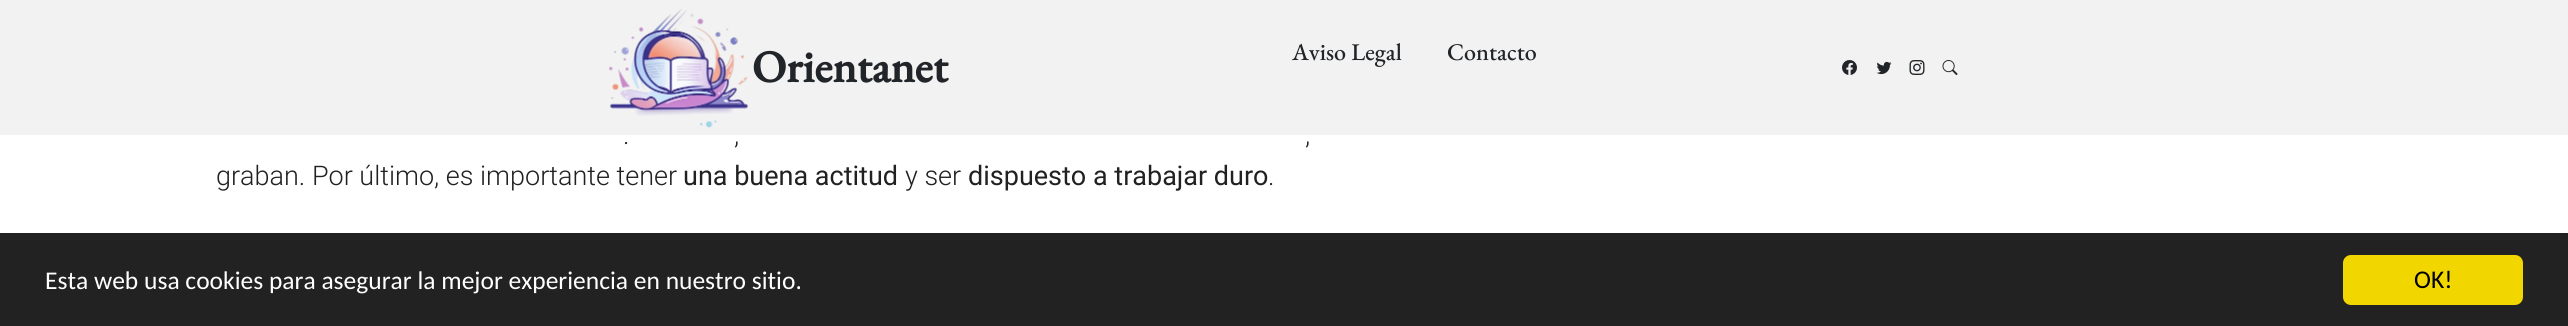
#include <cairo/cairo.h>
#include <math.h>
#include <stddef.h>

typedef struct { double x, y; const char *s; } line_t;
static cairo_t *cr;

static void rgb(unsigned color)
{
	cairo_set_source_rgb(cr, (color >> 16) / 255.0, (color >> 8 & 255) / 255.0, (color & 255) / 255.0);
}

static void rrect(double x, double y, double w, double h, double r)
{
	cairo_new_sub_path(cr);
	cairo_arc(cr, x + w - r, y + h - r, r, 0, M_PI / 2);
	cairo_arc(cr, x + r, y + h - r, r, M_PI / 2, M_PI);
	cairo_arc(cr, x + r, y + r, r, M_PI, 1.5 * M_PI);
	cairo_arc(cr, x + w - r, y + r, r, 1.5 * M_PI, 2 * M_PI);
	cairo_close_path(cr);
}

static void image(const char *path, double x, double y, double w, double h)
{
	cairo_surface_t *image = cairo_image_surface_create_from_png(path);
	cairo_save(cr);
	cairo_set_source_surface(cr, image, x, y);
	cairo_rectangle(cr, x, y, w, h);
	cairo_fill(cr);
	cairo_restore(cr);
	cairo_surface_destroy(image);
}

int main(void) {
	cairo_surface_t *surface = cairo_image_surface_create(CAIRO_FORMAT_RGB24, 2568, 326);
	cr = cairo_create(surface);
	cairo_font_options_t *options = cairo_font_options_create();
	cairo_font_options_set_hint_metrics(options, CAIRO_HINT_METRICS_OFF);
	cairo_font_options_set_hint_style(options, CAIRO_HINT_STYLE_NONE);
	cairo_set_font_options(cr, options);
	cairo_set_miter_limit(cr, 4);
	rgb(0xffffff);
	cairo_paint(cr);
	rgb(0xf2f2f2);
	cairo_rectangle(cr, 0, 0, 2568, 135);
	cairo_fill(cr);
	image("img/1.png", 608, 9, 140, 119);
	image("img/2.png", 1842, 60, 15, 15);
	image("img/3.png", 1876, 61, 16, 14);
	image("img/4.png", 1909, 60, 16, 15);
	image("img/5.png", 1942, 60, 16, 15);
	rgb(0x222222);
	cairo_rectangle(cr, 0, 233, 2568, 93);
	cairo_fill(cr);
	rgb(0xf1d600);
	rrect(2343, 255, 180, 50, 8);
	cairo_fill(cr);
	cairo_select_font_face(cr, "EB Garamond", CAIRO_FONT_SLANT_NORMAL, CAIRO_FONT_WEIGHT_BOLD);
	cairo_set_font_size(cr, 45);
	rgb(0x212529);
	cairo_move_to(cr, 752, 82);
	cairo_show_text(cr, "Orientanet");
	cairo_select_font_face(cr, "EB Garamond Medium", CAIRO_FONT_SLANT_NORMAL, CAIRO_FONT_WEIGHT_NORMAL);
	cairo_set_font_size(cr, 24);
	cairo_move_to(cr, 1292, 60);
	cairo_show_text(cr, "Aviso Legal");
	cairo_move_to(cr, 1447, 60);
	cairo_show_text(cr, "Contacto");
	cairo_select_font_face(cr, "Roboto Light", CAIRO_FONT_SLANT_NORMAL, CAIRO_FONT_WEIGHT_NORMAL);
	cairo_set_font_size(cr, 27);
	rgb(0x212121);
	{
		static const line_t items[] = {
			{623, 144, "."},
			{734, 144, ","},
			{1305, 144, ","},
			{216, 185, "graban. Por último, es importante tener"},
		};
		for (size_t i = 0; i < sizeof items / sizeof *items; i++) {
			cairo_move_to(cr, items[i].x, items[i].y);
			cairo_show_text(cr, items[i].s);
		}
	}
	cairo_select_font_face(cr, "Roboto", CAIRO_FONT_SLANT_NORMAL, CAIRO_FONT_WEIGHT_NORMAL);
	cairo_move_to(cr, 683, 185);
	cairo_show_text(cr, "una buena actitud");
	cairo_select_font_face(cr, "Roboto Light", CAIRO_FONT_SLANT_NORMAL, CAIRO_FONT_WEIGHT_NORMAL);
	cairo_move_to(cr, 905, 185);
	cairo_show_text(cr, "y ser");
	cairo_select_font_face(cr, "Roboto", CAIRO_FONT_SLANT_NORMAL, CAIRO_FONT_WEIGHT_NORMAL);
	cairo_move_to(cr, 968, 185);
	cairo_show_text(cr, "dispuesto a trabajar duro");
	cairo_select_font_face(cr, "Roboto Light", CAIRO_FONT_SLANT_NORMAL, CAIRO_FONT_WEIGHT_NORMAL);
	cairo_move_to(cr, 1268, 185);
	cairo_show_text(cr, ".");
	cairo_select_font_face(cr, "Carlito", CAIRO_FONT_SLANT_NORMAL, CAIRO_FONT_WEIGHT_NORMAL);
	cairo_set_font_size(cr, 25.5);
	rgb(0xffffff);
	cairo_move_to(cr, 45, 289);
	cairo_show_text(cr, "Esta web usa cookies para asegurar la mejor experiencia en nuestro sitio.");
	rgb(0x000000);
	cairo_move_to(cr, 2414, 288);
	cairo_show_text(cr, "OK!");
	cairo_surface_write_to_png(surface, "page.png");
	cairo_font_options_destroy(options);
	cairo_destroy(cr);
	cairo_surface_destroy(surface);
	return 0;
}
